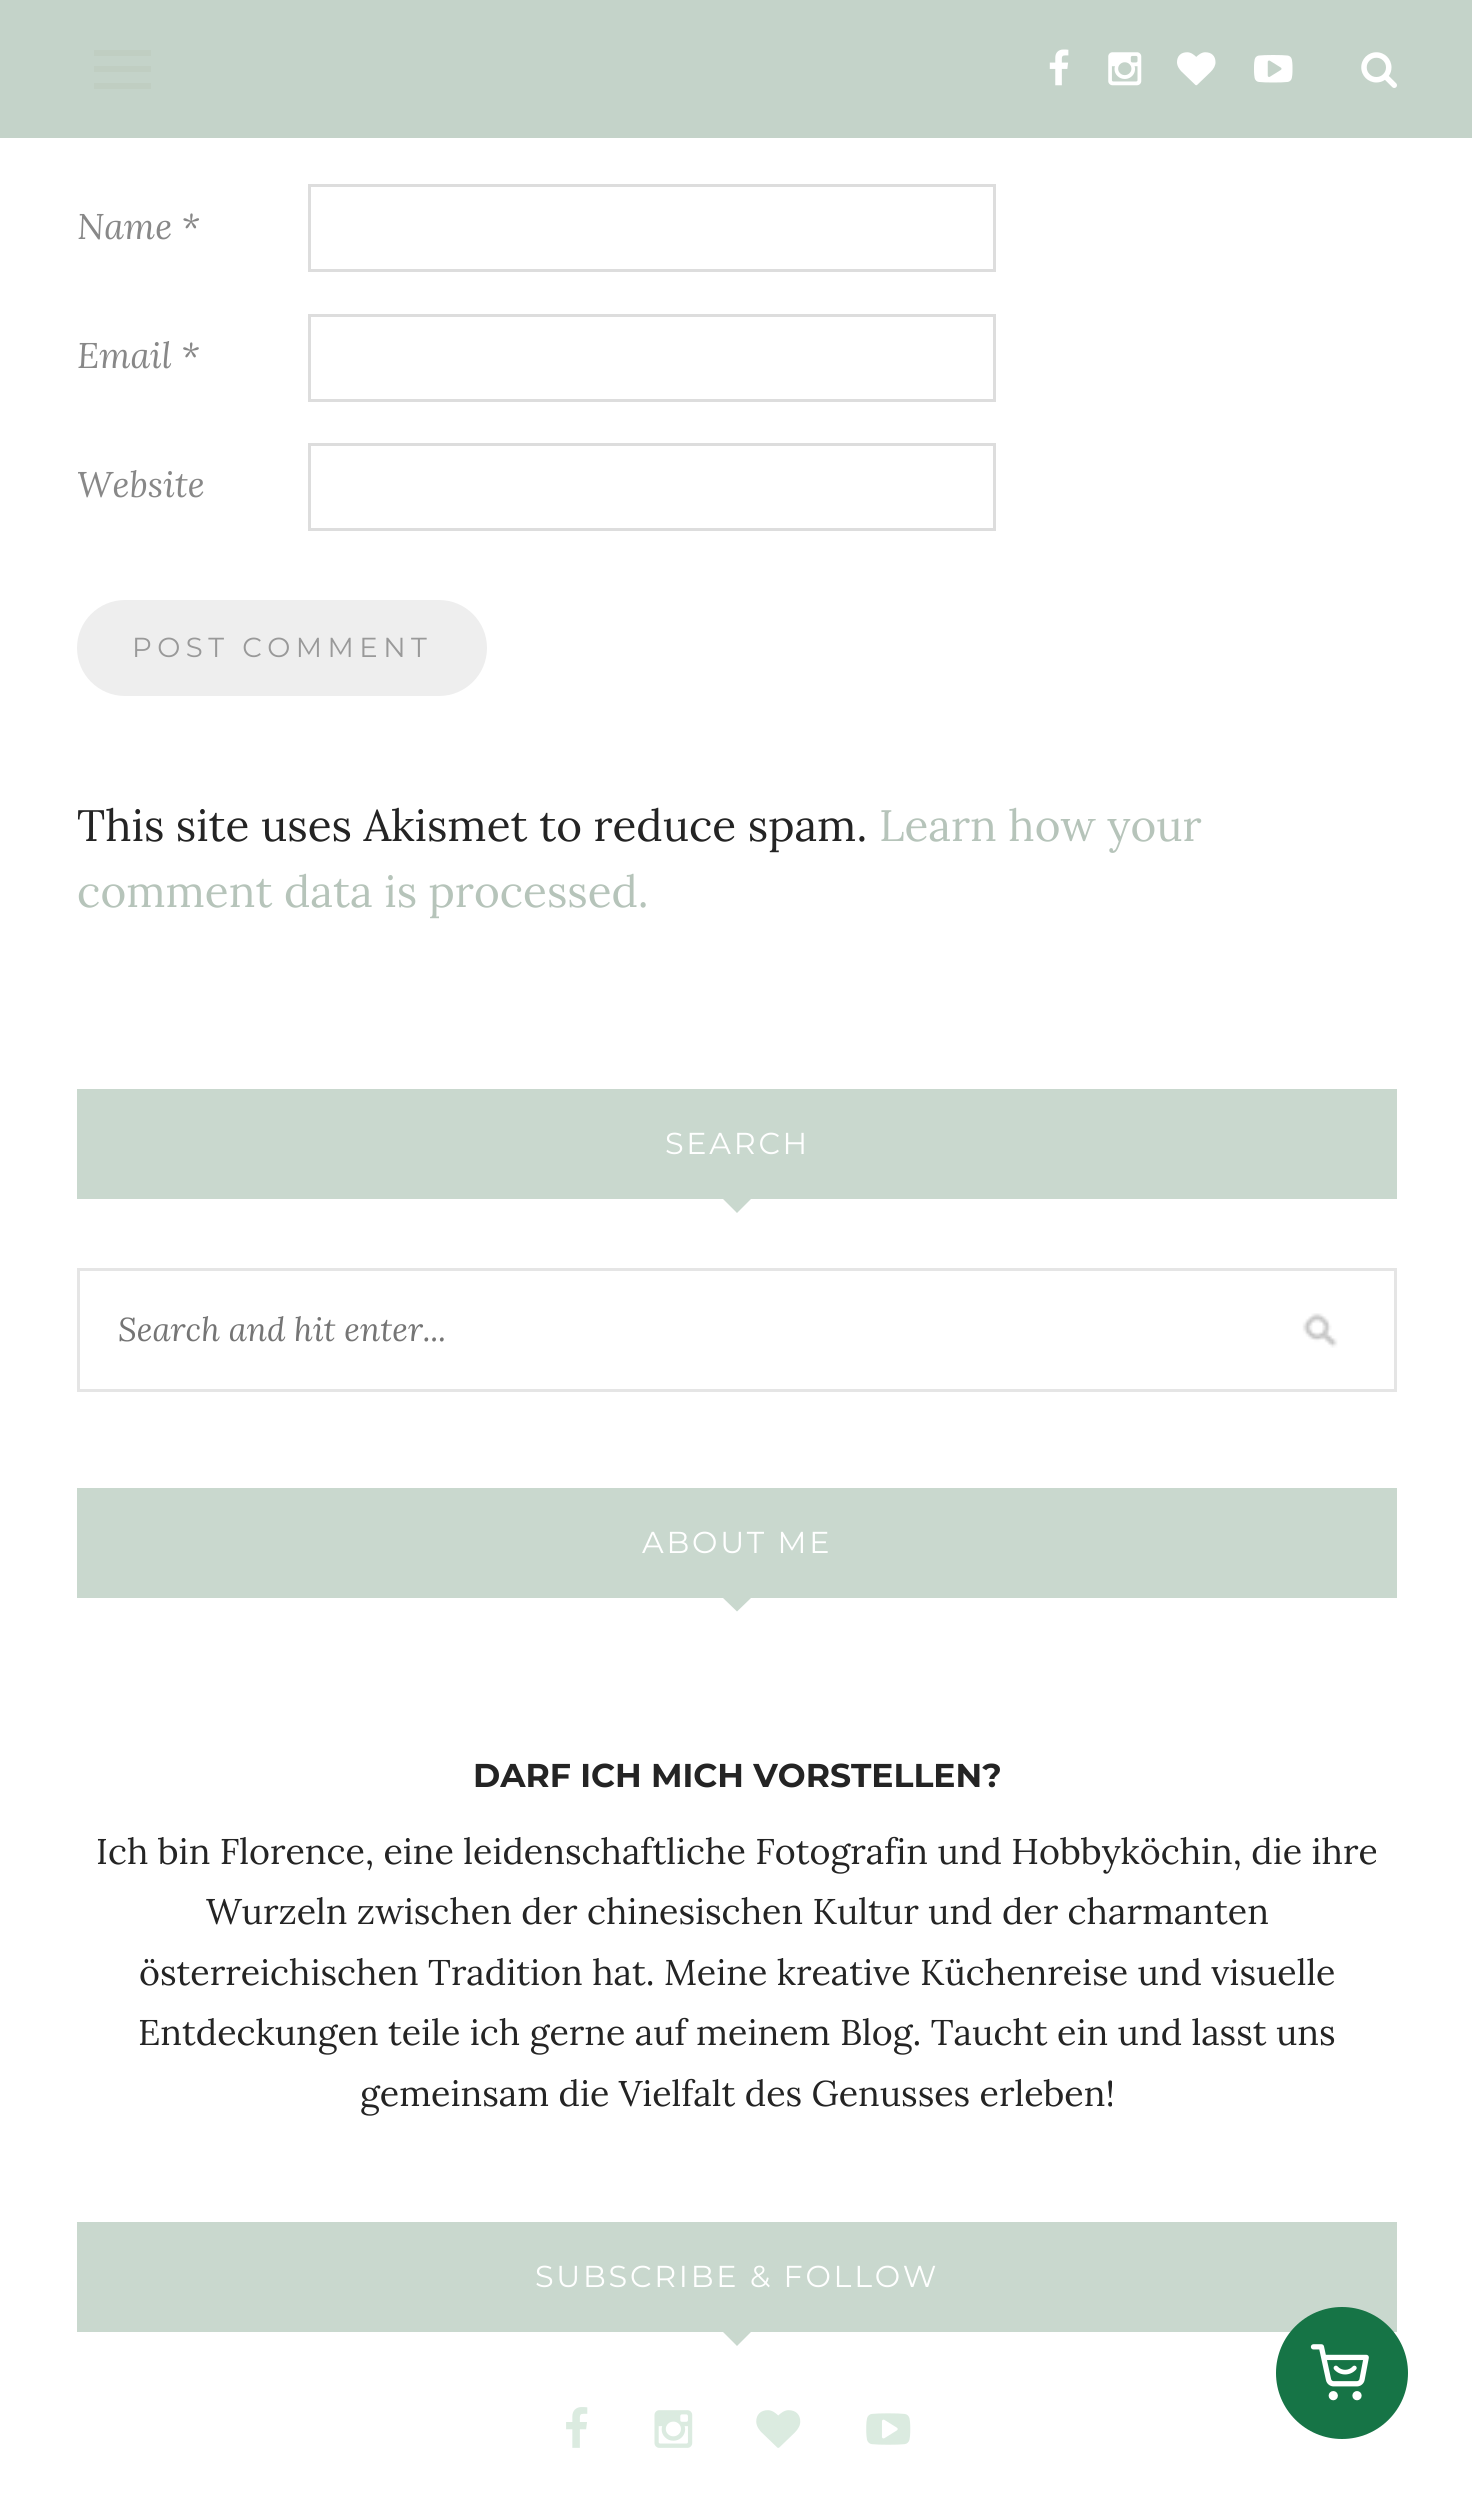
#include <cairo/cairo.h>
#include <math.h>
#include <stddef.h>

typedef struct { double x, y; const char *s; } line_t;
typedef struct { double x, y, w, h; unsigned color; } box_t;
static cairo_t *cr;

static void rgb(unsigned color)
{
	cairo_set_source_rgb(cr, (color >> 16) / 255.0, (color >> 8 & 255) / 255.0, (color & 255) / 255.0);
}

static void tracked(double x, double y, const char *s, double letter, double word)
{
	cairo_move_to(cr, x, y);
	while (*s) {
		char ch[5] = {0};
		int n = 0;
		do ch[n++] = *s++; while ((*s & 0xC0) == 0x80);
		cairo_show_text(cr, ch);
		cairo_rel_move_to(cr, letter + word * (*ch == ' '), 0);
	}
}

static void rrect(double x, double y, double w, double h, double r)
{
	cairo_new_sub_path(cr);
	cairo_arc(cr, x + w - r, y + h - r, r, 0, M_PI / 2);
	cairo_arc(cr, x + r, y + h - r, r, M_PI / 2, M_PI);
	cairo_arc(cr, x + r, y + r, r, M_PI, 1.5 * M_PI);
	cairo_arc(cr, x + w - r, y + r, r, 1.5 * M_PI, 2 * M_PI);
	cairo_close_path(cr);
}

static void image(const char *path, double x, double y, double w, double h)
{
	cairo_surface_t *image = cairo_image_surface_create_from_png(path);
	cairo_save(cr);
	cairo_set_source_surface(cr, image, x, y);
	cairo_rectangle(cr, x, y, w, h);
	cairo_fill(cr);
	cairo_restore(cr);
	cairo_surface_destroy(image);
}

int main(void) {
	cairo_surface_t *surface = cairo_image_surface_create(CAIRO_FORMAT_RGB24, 1472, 2504);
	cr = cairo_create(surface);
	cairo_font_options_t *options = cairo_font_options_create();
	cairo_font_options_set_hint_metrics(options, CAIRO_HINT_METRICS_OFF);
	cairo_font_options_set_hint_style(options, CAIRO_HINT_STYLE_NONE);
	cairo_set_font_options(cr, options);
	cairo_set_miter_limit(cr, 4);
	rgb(0xffffff);
	cairo_paint(cr);
	{
		static const box_t items[] = {
			{0, 0, 1472, 138, 0xc4d3c9},
			{94, 50, 57, 6, 0xc0cec2},
			{94, 66, 57, 6, 0xc0cec2},
			{94, 83, 57, 6, 0xc0cec2},
		};
		for (size_t i = 0; i < sizeof items / sizeof *items; i++) {
			rgb(items[i].color);
			cairo_rectangle(cr, items[i].x, items[i].y, items[i].w, items[i].h);
			cairo_fill(cr);
		}
	}
	image("img/1.png", 1049, 49, 20, 37);
	image("img/2.png", 1108, 52, 34, 34);
	image("img/3.png", 1177, 52, 39, 34);
	image("img/4.png", 1254, 55, 39, 28);
	image("img/5.png", 1361, 52, 36, 36);
	cairo_rectangle(cr, 309.5, 185.5, 685, 85);
	rgb(0xdddddd);
	cairo_set_line_width(cr, 3);
	cairo_stroke(cr);
	cairo_rectangle(cr, 309.5, 315.5, 685, 85);
	cairo_stroke(cr);
	cairo_rectangle(cr, 309.5, 444.5, 685, 85);
	cairo_stroke(cr);
	rgb(0xeeeeee);
	rrect(77, 600, 410, 96, 48);
	cairo_fill(cr);
	rgb(0xc9d8ce);
	cairo_rectangle(cr, 77, 1089, 1320, 110);
	cairo_fill(cr);
	cairo_new_path(cr);
	cairo_move_to(cr, 723, 1199);
	cairo_line_to(cr, 751, 1199);
	cairo_line_to(cr, 737, 1213);
	cairo_close_path(cr);
	cairo_fill(cr);
	image("img/6.png", 1302, 1313, 36, 35);
	cairo_rectangle(cr, 78.5, 1269.5, 1317, 121);
	rgb(0xe5e5e5);
	cairo_stroke(cr);
	rgb(0xc9d8ce);
	cairo_rectangle(cr, 77, 1488, 1320, 110);
	cairo_fill(cr);
	cairo_new_path(cr);
	cairo_move_to(cr, 723, 1598);
	cairo_line_to(cr, 751, 1598);
	cairo_line_to(cr, 737, 1611.5);
	cairo_close_path(cr);
	cairo_fill(cr);
	cairo_rectangle(cr, 77, 2222, 1320, 110);
	cairo_fill(cr);
	cairo_new_path(cr);
	cairo_move_to(cr, 723, 2332);
	cairo_line_to(cr, 751, 2332);
	cairo_line_to(cr, 737, 2346);
	cairo_close_path(cr);
	cairo_fill(cr);
	image("img/7.png", 566, 2407, 22, 41);
	image("img/8.png", 654, 2410, 39, 38);
	image("img/9.png", 756, 2410, 45, 38);
	image("img/10.png", 866, 2413, 45, 32);
	rgb(0x167446);
	cairo_arc(cr, 1342, 2373, 66, 0, 2 * M_PI);
	cairo_fill(cr);
	image("img/11.png", 1310, 2344, 59, 57);
	cairo_select_font_face(cr, "Lora", CAIRO_FONT_SLANT_ITALIC, CAIRO_FONT_WEIGHT_NORMAL);
	cairo_set_font_size(cr, 35.75);
	rgb(0x888888);
	{
		static const line_t items[] = {
			{77, 239, "Name *"},
			{77, 368, "Email *"},
			{77, 497, "Website"},
		};
		for (size_t i = 0; i < sizeof items / sizeof *items; i++) {
			cairo_move_to(cr, items[i].x, items[i].y);
			cairo_show_text(cr, items[i].s);
		}
	}
	cairo_select_font_face(cr, "Montserrat", CAIRO_FONT_SLANT_NORMAL, CAIRO_FONT_WEIGHT_NORMAL);
	cairo_set_font_size(cr, 27.5);
	rgb(0x999999);
	tracked(132, 657, "POST COMMENT", 5.5, 0);
	cairo_select_font_face(cr, "Lora", CAIRO_FONT_SLANT_NORMAL, CAIRO_FONT_WEIGHT_NORMAL);
	cairo_set_font_size(cr, 44);
	rgb(0x242424);
	cairo_move_to(cr, 77, 841);
	cairo_show_text(cr, "This site uses Akismet to reduce spam.");
	rgb(0xb6c4ba);
	cairo_move_to(cr, 879, 841);
	cairo_show_text(cr, "Learn how your");
	cairo_move_to(cr, 77, 907);
	cairo_show_text(cr, "comment data is processed.");
	cairo_select_font_face(cr, "Montserrat", CAIRO_FONT_SLANT_NORMAL, CAIRO_FONT_WEIGHT_NORMAL);
	cairo_set_font_size(cr, 30.25);
	rgb(0xffffff);
	tracked(665, 1154, "SEARCH", 2.75, 0);
	cairo_select_font_face(cr, "Lora", CAIRO_FONT_SLANT_ITALIC, CAIRO_FONT_WEIGHT_NORMAL);
	cairo_set_font_size(cr, 33);
	rgb(0x757575);
	cairo_move_to(cr, 118, 1341);
	cairo_show_text(cr, "Search and hit enter...");
	cairo_select_font_face(cr, "Montserrat", CAIRO_FONT_SLANT_NORMAL, CAIRO_FONT_WEIGHT_NORMAL);
	cairo_set_font_size(cr, 30.25);
	rgb(0xffffff);
	tracked(642, 1553, "ABOUT ME", 2.75, 0);
	cairo_select_font_face(cr, "Montserrat", CAIRO_FONT_SLANT_NORMAL, CAIRO_FONT_WEIGHT_BOLD);
	cairo_set_font_size(cr, 33);
	rgb(0x242424);
	cairo_move_to(cr, 473, 1787);
	cairo_show_text(cr, "DARF ICH MICH VORSTELLEN?");
	cairo_select_font_face(cr, "Lora", CAIRO_FONT_SLANT_NORMAL, CAIRO_FONT_WEIGHT_NORMAL);
	cairo_set_font_size(cr, 35.75);
	{
		static const line_t items[] = {
			{96, 1864, "Ich bin Florence, eine leidenschaftliche Fotografin und Hobbyköchin, die ihre"},
			{206, 1924, "Wurzeln zwischen der chinesischen Kultur und der charmanten"},
			{139, 1985, "österreichischen Tradition hat. Meine kreative Küchenreise und visuelle"},
			{138, 2045, "Entdeckungen teile ich gerne auf meinem Blog. Taucht ein und lasst uns"},
			{360, 2106, "gemeinsam die Vielfalt des Genusses erleben!"},
		};
		for (size_t i = 0; i < sizeof items / sizeof *items; i++) {
			cairo_move_to(cr, items[i].x, items[i].y);
			cairo_show_text(cr, items[i].s);
		}
	}
	cairo_select_font_face(cr, "Montserrat", CAIRO_FONT_SLANT_NORMAL, CAIRO_FONT_WEIGHT_NORMAL);
	cairo_set_font_size(cr, 30.25);
	rgb(0xffffff);
	tracked(535, 2287, "SUBSCRIBE & FOLLOW", 2.75, 0);
	cairo_surface_write_to_png(surface, "page.png");
	cairo_font_options_destroy(options);
	cairo_destroy(cr);
	cairo_surface_destroy(surface);
	return 0;
}
